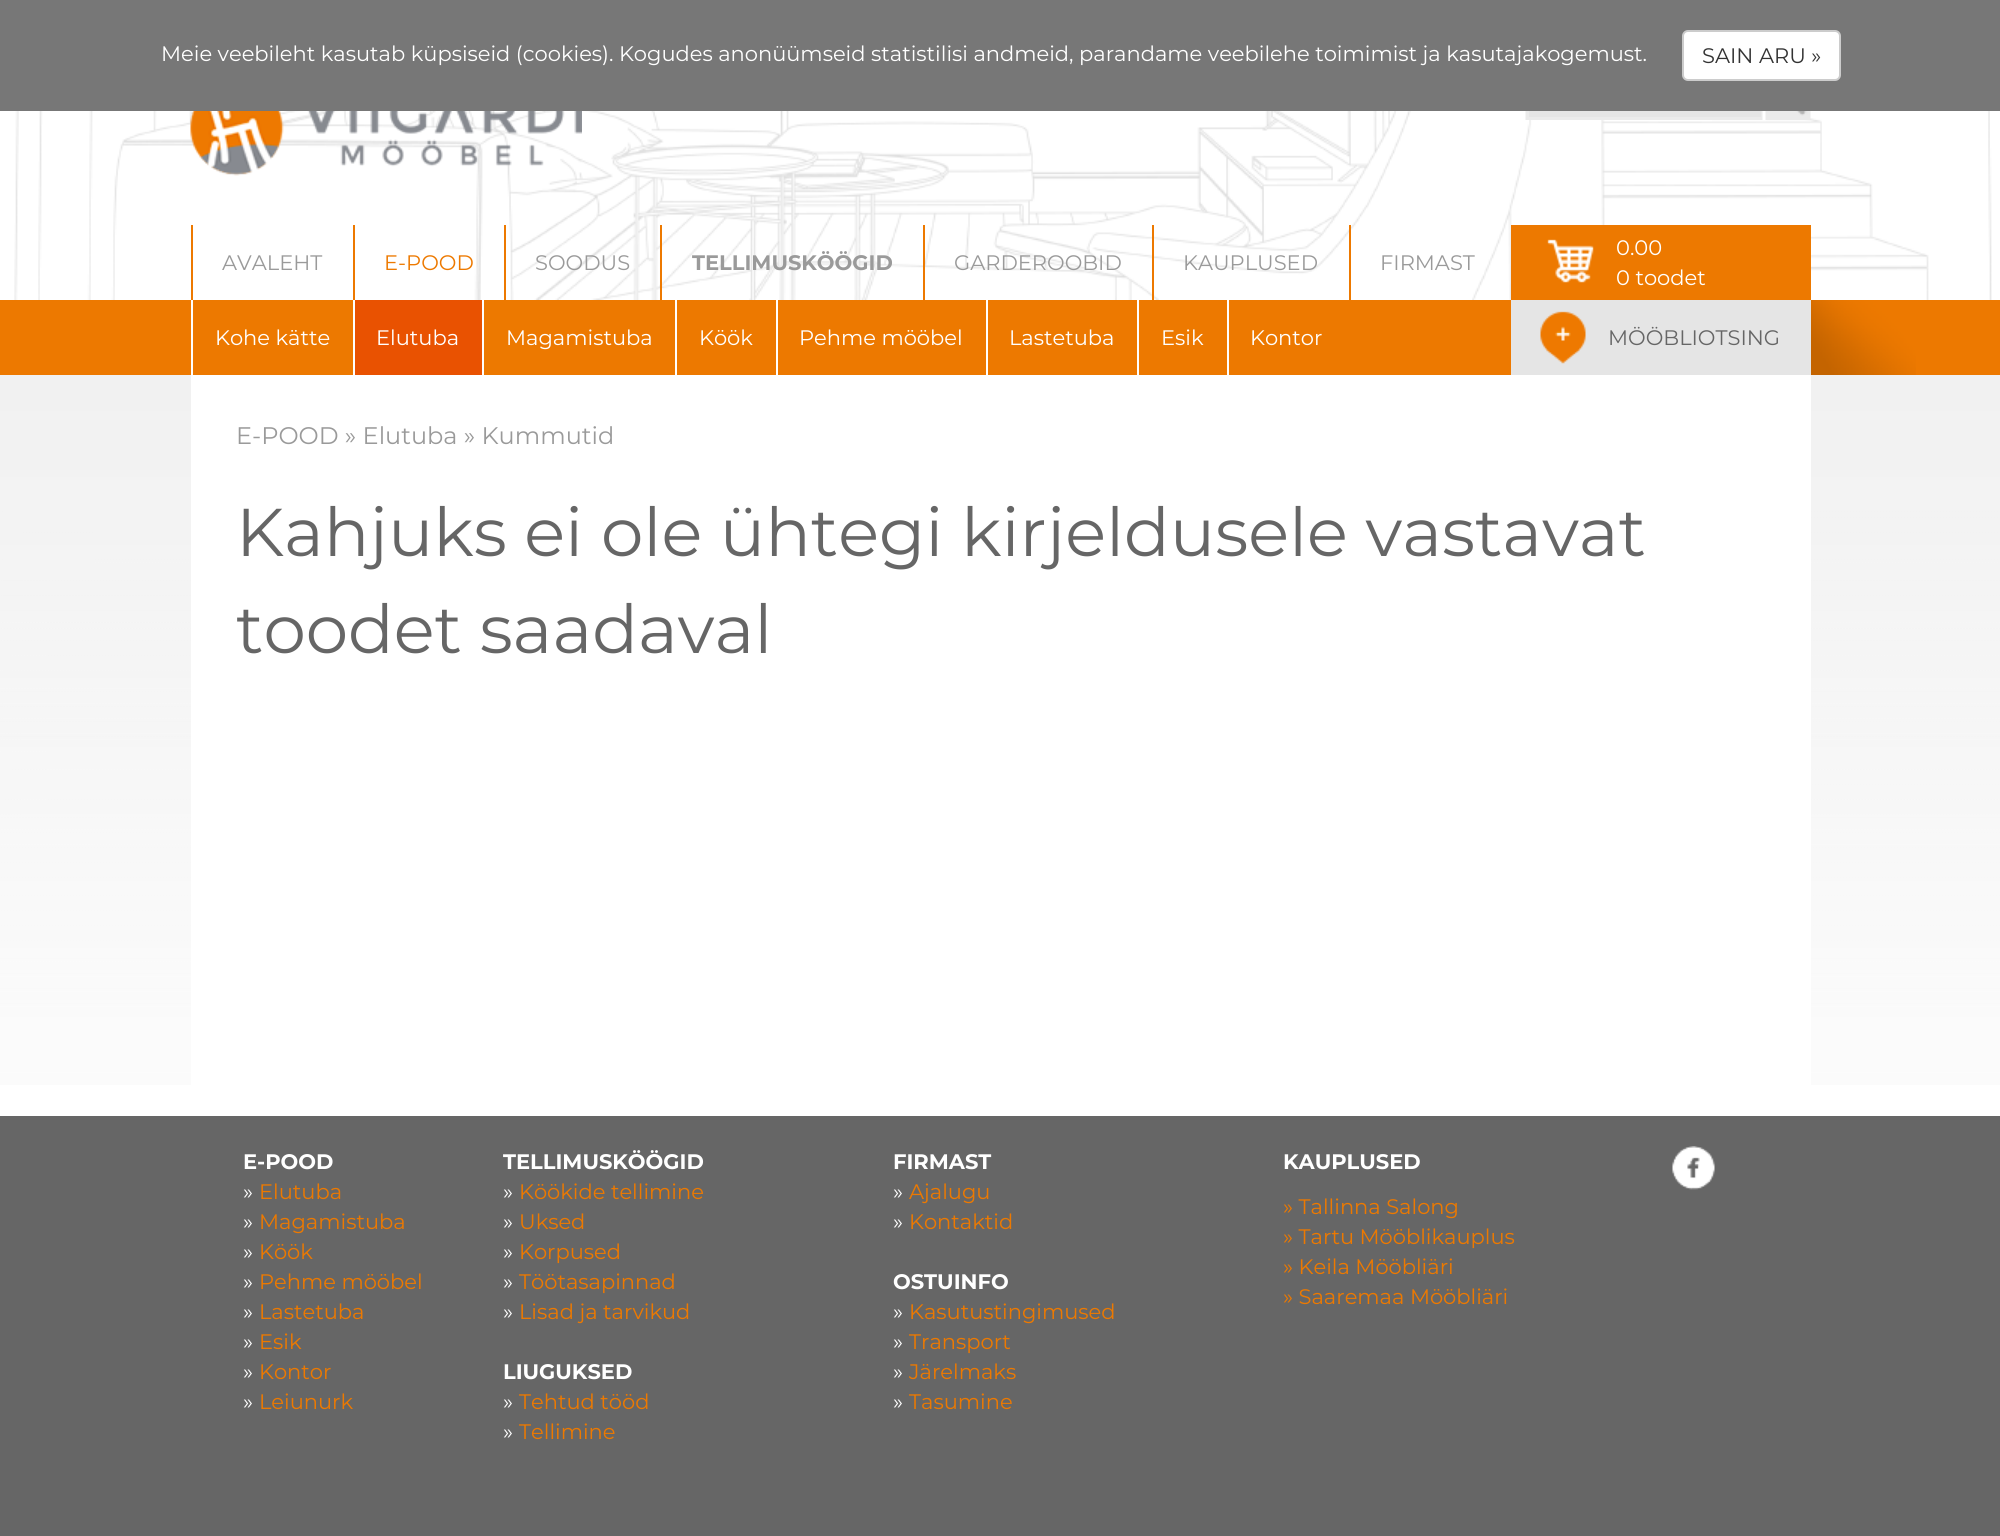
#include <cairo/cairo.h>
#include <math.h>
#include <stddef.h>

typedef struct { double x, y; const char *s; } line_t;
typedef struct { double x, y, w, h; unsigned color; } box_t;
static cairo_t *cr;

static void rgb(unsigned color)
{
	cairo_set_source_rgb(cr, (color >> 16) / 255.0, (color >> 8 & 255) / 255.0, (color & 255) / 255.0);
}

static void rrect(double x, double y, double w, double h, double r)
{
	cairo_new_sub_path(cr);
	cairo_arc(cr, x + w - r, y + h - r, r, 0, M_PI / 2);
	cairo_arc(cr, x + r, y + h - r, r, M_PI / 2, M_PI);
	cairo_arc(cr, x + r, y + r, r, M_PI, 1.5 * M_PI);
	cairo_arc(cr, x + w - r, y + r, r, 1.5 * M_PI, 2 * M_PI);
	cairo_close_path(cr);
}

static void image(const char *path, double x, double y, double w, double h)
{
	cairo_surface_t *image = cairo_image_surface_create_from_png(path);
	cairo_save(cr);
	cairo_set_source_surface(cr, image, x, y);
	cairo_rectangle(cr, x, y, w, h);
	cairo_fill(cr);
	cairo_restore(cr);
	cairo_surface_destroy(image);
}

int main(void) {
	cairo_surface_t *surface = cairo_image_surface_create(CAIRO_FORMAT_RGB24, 2000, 1536);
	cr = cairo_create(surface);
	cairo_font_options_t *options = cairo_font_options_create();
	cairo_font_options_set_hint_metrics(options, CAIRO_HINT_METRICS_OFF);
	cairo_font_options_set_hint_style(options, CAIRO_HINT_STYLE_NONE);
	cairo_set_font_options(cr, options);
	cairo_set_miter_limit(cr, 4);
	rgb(0xffffff);
	cairo_paint(cr);
	rgb(0x777777);
	cairo_rectangle(cr, 0, 0, 2000, 111);
	cairo_fill(cr);
	rgb(0xffffff);
	rrect(1683, 31, 157, 49, 5);
	cairo_fill_preserve(cr);
	rgb(0xcccccc);
	cairo_stroke(cr);
	image("img/1.png", 14, 111, 1978, 189);
	{
		static const box_t items[] = {
			{191, 225, 2, 75, 0xed7900},
			{353, 225, 2, 75, 0xed7900},
			{504, 225, 2, 75, 0xed7900},
			{660, 225, 2, 75, 0xed7900},
			{923, 225, 2, 75, 0xed7900},
			{1152, 225, 2, 75, 0xed7900},
			{1349, 225, 2, 75, 0xed7900},
		};
		for (size_t i = 0; i < sizeof items / sizeof *items; i++) {
			rgb(items[i].color);
			cairo_rectangle(cr, items[i].x, items[i].y, items[i].w, items[i].h);
			cairo_fill(cr);
		}
	}
	image("img/2.png", 190, 111, 392, 65);
	image("img/3.png", 1525, 111, 286, 9);
	rgb(0xe5e5e5);
	cairo_rectangle(cr, 1529, 111, 232, 6);
	cairo_fill(cr);
	rgb(0xed7900);
	cairo_rectangle(cr, 1511, 225, 300, 75);
	cairo_fill(cr);
	image("img/4.png", 1547, 239, 47, 44);
	{
		static const box_t items[] = {
			{0, 300, 2000, 75, 0xed7900},
			{191, 300, 2, 75, 0xffffff},
			{355, 300, 127, 75, 0xe95201},
			{353, 300, 2, 75, 0xffffff},
			{482, 300, 2, 75, 0xffffff},
			{675, 300, 2, 75, 0xffffff},
			{776, 300, 2, 75, 0xffffff},
			{986, 300, 2, 75, 0xffffff},
			{1137, 300, 2, 75, 0xffffff},
			{1227, 300, 2, 75, 0xffffff},
			{1511, 300, 300, 75, 0xe5e5e5},
		};
		for (size_t i = 0; i < sizeof items / sizeof *items; i++) {
			rgb(items[i].color);
			cairo_rectangle(cr, items[i].x, items[i].y, items[i].w, items[i].h);
			cairo_fill(cr);
		}
	}
	image("img/5.png", 1540, 311, 46, 53);
	image("img/6.png", 1811, 300, 105, 75);
	image("img/7.png", 0, 375, 2000, 710);
	rgb(0xffffff);
	cairo_rectangle(cr, 191, 375, 1620, 710);
	cairo_fill(cr);
	rgb(0x666666);
	cairo_rectangle(cr, 0, 1116, 2000, 420);
	cairo_fill(cr);
	image("img/8.png", 1672, 1146, 43, 44);
	cairo_select_font_face(cr, "Montserrat", CAIRO_FONT_SLANT_NORMAL, CAIRO_FONT_WEIGHT_NORMAL);
	cairo_set_font_size(cr, 21);
	rgb(0xffffff);
	cairo_move_to(cr, 161, 61);
	cairo_show_text(cr, "Meie veebileht kasutab küpsiseid (cookies). Kogudes anonüümseid statistilisi andmeid, parandame veebilehe toimimist ja kasutajakogemust.");
	rgb(0x333333);
	cairo_move_to(cr, 1702, 63);
	cairo_show_text(cr, "SAIN ARU »");
	rgb(0x9a9a9a);
	cairo_move_to(cr, 222, 270);
	cairo_show_text(cr, "AVALEHT");
	rgb(0xed7900);
	cairo_move_to(cr, 384, 270);
	cairo_show_text(cr, "E-POOD");
	rgb(0x9a9a9a);
	cairo_move_to(cr, 535, 270);
	cairo_show_text(cr, "SOODUS");
	cairo_select_font_face(cr, "Montserrat", CAIRO_FONT_SLANT_NORMAL, CAIRO_FONT_WEIGHT_BOLD);
	cairo_move_to(cr, 692, 270);
	cairo_show_text(cr, "TELLIMUSKÖÖGID");
	cairo_select_font_face(cr, "Montserrat", CAIRO_FONT_SLANT_NORMAL, CAIRO_FONT_WEIGHT_NORMAL);
	{
		static const line_t items[] = {
			{954, 270, "GARDEROOBID"},
			{1183, 270, "KAUPLUSED"},
			{1380, 270, "FIRMAST"},
		};
		for (size_t i = 0; i < sizeof items / sizeof *items; i++) {
			cairo_move_to(cr, items[i].x, items[i].y);
			cairo_show_text(cr, items[i].s);
		}
	}
	rgb(0xffffff);
	{
		static const line_t items[] = {
			{1616, 255, "0.00"},
			{1616, 285, "0 toodet"},
			{215, 345, "Kohe kätte"},
			{376, 345, "Elutuba"},
			{506, 345, "Magamistuba"},
			{699, 345, "Köök"},
			{799, 345, "Pehme mööbel"},
			{1009, 345, "Lastetuba"},
			{1161, 345, "Esik"},
			{1250, 345, "Kontor"},
		};
		for (size_t i = 0; i < sizeof items / sizeof *items; i++) {
			cairo_move_to(cr, items[i].x, items[i].y);
			cairo_show_text(cr, items[i].s);
		}
	}
	rgb(0x666666);
	cairo_move_to(cr, 1608, 345);
	cairo_show_text(cr, "MÖÖBLIOTSING");
	cairo_set_font_size(cr, 24);
	rgb(0x9a9a9a);
	cairo_move_to(cr, 236, 444);
	cairo_show_text(cr, "E-POOD » Elutuba » Kummutid");
	cairo_set_font_size(cr, 67.5);
	rgb(0x666666);
	cairo_move_to(cr, 236, 556);
	cairo_show_text(cr, "Kahjuks ei ole ühtegi kirjeldusele vastavat");
	cairo_move_to(cr, 236, 653);
	cairo_show_text(cr, "toodet saadaval");
	cairo_select_font_face(cr, "Montserrat", CAIRO_FONT_SLANT_NORMAL, CAIRO_FONT_WEIGHT_BOLD);
	cairo_set_font_size(cr, 21);
	rgb(0xffffff);
	cairo_move_to(cr, 243, 1169);
	cairo_show_text(cr, "E-POOD");
	cairo_select_font_face(cr, "Montserrat", CAIRO_FONT_SLANT_NORMAL, CAIRO_FONT_WEIGHT_NORMAL);
	cairo_move_to(cr, 243, 1199);
	cairo_show_text(cr, "»");
	rgb(0xed7900);
	cairo_move_to(cr, 259, 1199);
	cairo_show_text(cr, "Elutuba");
	rgb(0xffffff);
	cairo_move_to(cr, 243, 1229);
	cairo_show_text(cr, "»");
	rgb(0xed7900);
	cairo_move_to(cr, 259, 1229);
	cairo_show_text(cr, "Magamistuba");
	rgb(0xffffff);
	cairo_move_to(cr, 243, 1259);
	cairo_show_text(cr, "»");
	rgb(0xed7900);
	cairo_move_to(cr, 259, 1259);
	cairo_show_text(cr, "Köök");
	rgb(0xffffff);
	cairo_move_to(cr, 243, 1289);
	cairo_show_text(cr, "»");
	rgb(0xed7900);
	cairo_move_to(cr, 259, 1289);
	cairo_show_text(cr, "Pehme mööbel");
	rgb(0xffffff);
	cairo_move_to(cr, 243, 1319);
	cairo_show_text(cr, "»");
	rgb(0xed7900);
	cairo_move_to(cr, 259, 1319);
	cairo_show_text(cr, "Lastetuba");
	rgb(0xffffff);
	cairo_move_to(cr, 243, 1349);
	cairo_show_text(cr, "»");
	rgb(0xed7900);
	cairo_move_to(cr, 259, 1349);
	cairo_show_text(cr, "Esik");
	rgb(0xffffff);
	cairo_move_to(cr, 243, 1379);
	cairo_show_text(cr, "»");
	rgb(0xed7900);
	cairo_move_to(cr, 259, 1379);
	cairo_show_text(cr, "Kontor");
	rgb(0xffffff);
	cairo_move_to(cr, 243, 1409);
	cairo_show_text(cr, "»");
	rgb(0xed7900);
	cairo_move_to(cr, 259, 1409);
	cairo_show_text(cr, "Leiunurk");
	cairo_select_font_face(cr, "Montserrat", CAIRO_FONT_SLANT_NORMAL, CAIRO_FONT_WEIGHT_BOLD);
	rgb(0xffffff);
	cairo_move_to(cr, 503, 1169);
	cairo_show_text(cr, "TELLIMUSKÖÖGID");
	cairo_select_font_face(cr, "Montserrat", CAIRO_FONT_SLANT_NORMAL, CAIRO_FONT_WEIGHT_NORMAL);
	cairo_move_to(cr, 503, 1199);
	cairo_show_text(cr, "»");
	rgb(0xed7900);
	cairo_move_to(cr, 519, 1199);
	cairo_show_text(cr, "Köökide tellimine");
	rgb(0xffffff);
	cairo_move_to(cr, 503, 1229);
	cairo_show_text(cr, "»");
	rgb(0xed7900);
	cairo_move_to(cr, 519, 1229);
	cairo_show_text(cr, "Uksed");
	rgb(0xffffff);
	cairo_move_to(cr, 503, 1259);
	cairo_show_text(cr, "»");
	rgb(0xed7900);
	cairo_move_to(cr, 519, 1259);
	cairo_show_text(cr, "Korpused");
	rgb(0xffffff);
	cairo_move_to(cr, 503, 1289);
	cairo_show_text(cr, "»");
	rgb(0xed7900);
	cairo_move_to(cr, 519, 1289);
	cairo_show_text(cr, "Töötasapinnad");
	rgb(0xffffff);
	cairo_move_to(cr, 503, 1319);
	cairo_show_text(cr, "»");
	rgb(0xed7900);
	cairo_move_to(cr, 519, 1319);
	cairo_show_text(cr, "Lisad ja tarvikud");
	cairo_select_font_face(cr, "Montserrat", CAIRO_FONT_SLANT_NORMAL, CAIRO_FONT_WEIGHT_BOLD);
	rgb(0xffffff);
	cairo_move_to(cr, 503, 1379);
	cairo_show_text(cr, "LIUGUKSED");
	cairo_select_font_face(cr, "Montserrat", CAIRO_FONT_SLANT_NORMAL, CAIRO_FONT_WEIGHT_NORMAL);
	cairo_move_to(cr, 503, 1409);
	cairo_show_text(cr, "»");
	rgb(0xed7900);
	cairo_move_to(cr, 519, 1409);
	cairo_show_text(cr, "Tehtud tööd");
	rgb(0xffffff);
	cairo_move_to(cr, 503, 1439);
	cairo_show_text(cr, "»");
	rgb(0xed7900);
	cairo_move_to(cr, 519, 1439);
	cairo_show_text(cr, "Tellimine");
	cairo_select_font_face(cr, "Montserrat", CAIRO_FONT_SLANT_NORMAL, CAIRO_FONT_WEIGHT_BOLD);
	rgb(0xffffff);
	cairo_move_to(cr, 893, 1169);
	cairo_show_text(cr, "FIRMAST");
	cairo_select_font_face(cr, "Montserrat", CAIRO_FONT_SLANT_NORMAL, CAIRO_FONT_WEIGHT_NORMAL);
	cairo_move_to(cr, 893, 1199);
	cairo_show_text(cr, "»");
	rgb(0xed7900);
	cairo_move_to(cr, 909, 1199);
	cairo_show_text(cr, "Ajalugu");
	rgb(0xffffff);
	cairo_move_to(cr, 893, 1229);
	cairo_show_text(cr, "»");
	rgb(0xed7900);
	cairo_move_to(cr, 909, 1229);
	cairo_show_text(cr, "Kontaktid");
	cairo_select_font_face(cr, "Montserrat", CAIRO_FONT_SLANT_NORMAL, CAIRO_FONT_WEIGHT_BOLD);
	rgb(0xffffff);
	cairo_move_to(cr, 893, 1289);
	cairo_show_text(cr, "OSTUINFO");
	cairo_select_font_face(cr, "Montserrat", CAIRO_FONT_SLANT_NORMAL, CAIRO_FONT_WEIGHT_NORMAL);
	cairo_move_to(cr, 893, 1319);
	cairo_show_text(cr, "»");
	rgb(0xed7900);
	cairo_move_to(cr, 909, 1319);
	cairo_show_text(cr, "Kasutustingimused");
	rgb(0xffffff);
	cairo_move_to(cr, 893, 1349);
	cairo_show_text(cr, "»");
	rgb(0xed7900);
	cairo_move_to(cr, 909, 1349);
	cairo_show_text(cr, "Transport");
	rgb(0xffffff);
	cairo_move_to(cr, 893, 1379);
	cairo_show_text(cr, "»");
	rgb(0xed7900);
	cairo_move_to(cr, 909, 1379);
	cairo_show_text(cr, "Järelmaks");
	rgb(0xffffff);
	cairo_move_to(cr, 893, 1409);
	cairo_show_text(cr, "»");
	rgb(0xed7900);
	cairo_move_to(cr, 909, 1409);
	cairo_show_text(cr, "Tasumine");
	cairo_select_font_face(cr, "Montserrat", CAIRO_FONT_SLANT_NORMAL, CAIRO_FONT_WEIGHT_BOLD);
	rgb(0xffffff);
	cairo_move_to(cr, 1283, 1169);
	cairo_show_text(cr, "KAUPLUSED");
	cairo_select_font_face(cr, "Montserrat", CAIRO_FONT_SLANT_NORMAL, CAIRO_FONT_WEIGHT_NORMAL);
	rgb(0xed7900);
	{
		static const line_t items[] = {
			{1283, 1214, "» Tallinna Salong"},
			{1283, 1244, "» Tartu Mööblikauplus"},
			{1283, 1274, "» Keila Mööbliäri"},
			{1283, 1304, "» Saaremaa Mööbliäri"},
		};
		for (size_t i = 0; i < sizeof items / sizeof *items; i++) {
			cairo_move_to(cr, items[i].x, items[i].y);
			cairo_show_text(cr, items[i].s);
		}
	}
	cairo_surface_write_to_png(surface, "page.png");
	cairo_font_options_destroy(options);
	cairo_destroy(cr);
	cairo_surface_destroy(surface);
	return 0;
}
